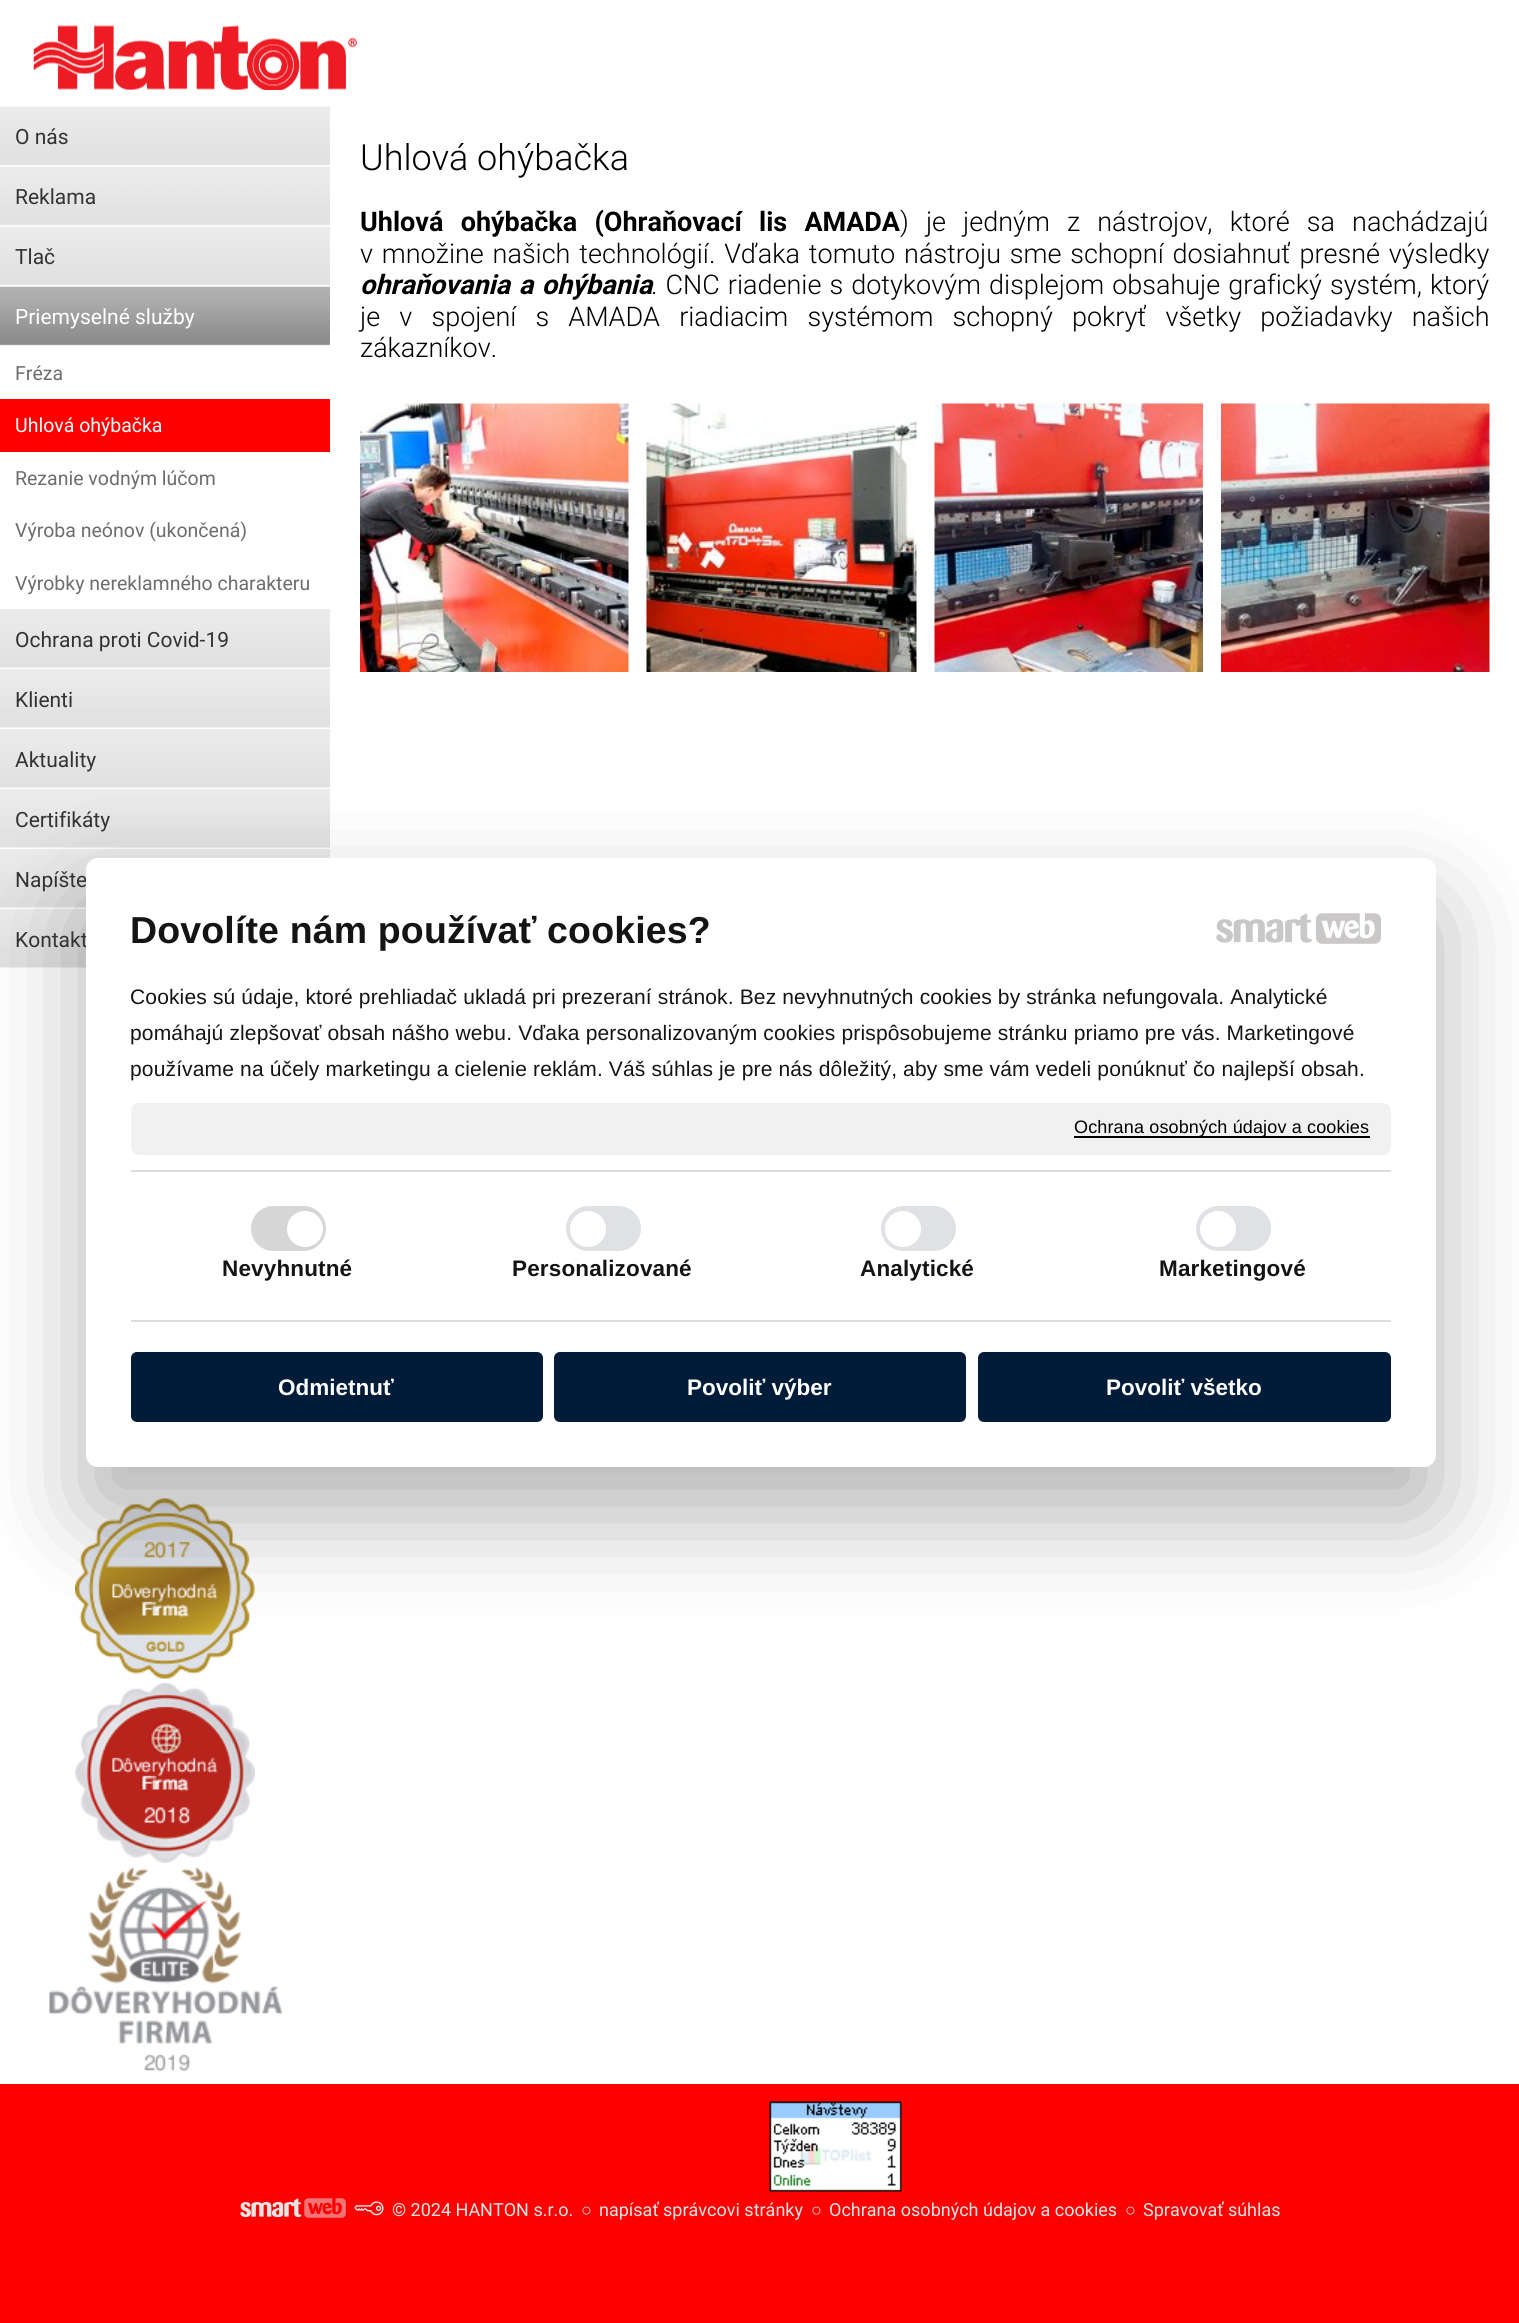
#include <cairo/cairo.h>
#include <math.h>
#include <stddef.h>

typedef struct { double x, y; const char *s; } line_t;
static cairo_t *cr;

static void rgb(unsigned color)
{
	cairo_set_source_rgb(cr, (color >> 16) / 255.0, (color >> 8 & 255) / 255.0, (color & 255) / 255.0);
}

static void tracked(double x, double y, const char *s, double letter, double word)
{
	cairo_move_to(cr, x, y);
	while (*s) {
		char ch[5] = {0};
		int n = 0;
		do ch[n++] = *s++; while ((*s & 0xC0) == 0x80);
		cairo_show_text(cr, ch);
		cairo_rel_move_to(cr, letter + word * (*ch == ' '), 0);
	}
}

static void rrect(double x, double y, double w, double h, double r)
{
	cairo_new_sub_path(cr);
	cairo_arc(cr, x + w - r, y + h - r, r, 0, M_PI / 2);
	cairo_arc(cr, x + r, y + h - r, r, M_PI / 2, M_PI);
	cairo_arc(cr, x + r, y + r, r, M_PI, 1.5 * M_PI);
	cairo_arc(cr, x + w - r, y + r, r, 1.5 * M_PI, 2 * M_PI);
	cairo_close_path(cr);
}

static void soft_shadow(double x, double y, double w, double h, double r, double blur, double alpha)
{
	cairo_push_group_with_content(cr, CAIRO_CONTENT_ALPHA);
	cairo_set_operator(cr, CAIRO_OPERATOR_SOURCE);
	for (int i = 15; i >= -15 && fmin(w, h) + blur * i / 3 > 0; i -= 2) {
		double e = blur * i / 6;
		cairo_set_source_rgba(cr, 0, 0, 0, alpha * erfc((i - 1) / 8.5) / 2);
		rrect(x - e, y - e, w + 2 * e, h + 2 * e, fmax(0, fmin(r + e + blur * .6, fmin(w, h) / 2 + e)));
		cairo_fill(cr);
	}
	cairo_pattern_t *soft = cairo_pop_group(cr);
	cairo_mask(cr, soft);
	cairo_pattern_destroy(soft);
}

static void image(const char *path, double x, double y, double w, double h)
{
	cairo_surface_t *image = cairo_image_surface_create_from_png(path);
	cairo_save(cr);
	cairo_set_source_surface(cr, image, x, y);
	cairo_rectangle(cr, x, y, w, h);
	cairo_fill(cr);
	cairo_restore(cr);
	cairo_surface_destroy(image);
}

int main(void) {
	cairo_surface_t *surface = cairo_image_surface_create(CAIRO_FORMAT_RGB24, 1519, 2323);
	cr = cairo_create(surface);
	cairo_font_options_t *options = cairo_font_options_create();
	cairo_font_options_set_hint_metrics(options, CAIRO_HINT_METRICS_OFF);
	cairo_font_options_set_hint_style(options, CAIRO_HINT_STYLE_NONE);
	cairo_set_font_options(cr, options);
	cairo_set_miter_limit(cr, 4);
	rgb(0xfe0000);
	cairo_paint(cr);
	rgb(0xffffff);
	cairo_rectangle(cr, 0, 0, 1519, 2084);
	cairo_fill(cr);
	image("img/1.png", 33, 25, 324, 65);
	image("img/2.png", 0, 106, 330, 60);
	image("img/3.png", 0, 166, 330, 60);
	image("img/4.png", 0, 226, 330, 60);
	image("img/5.png", 0, 286, 330, 60);
	rgb(0xff0000);
	cairo_rectangle(cr, 0, 399, 330, 53);
	cairo_fill(cr);
	image("img/6.png", 0, 609, 330, 59);
	image("img/7.png", 0, 669, 330, 59);
	image("img/6.png", 0, 729, 330, 59);
	image("img/7.png", 0, 789, 330, 59);
	image("img/8.png", 0, 849, 330, 59);
	image("img/9.png", 0, 909, 86, 59);
	image("img/10.png", 75, 1498, 180, 181);
	image("img/11.png", 75, 1683, 180, 180);
	image("img/12.png", 49, 1867, 233, 205);
	image("img/13.png", 360, 403, 269, 269);
	image("img/14.png", 646, 403, 271, 269);
	image("img/15.png", 934, 403, 269, 269);
	image("img/16.png", 1221, 403, 269, 269);
	rgb(0x000000);
	soft_shadow(86, 906, 1350, 609, 12, 51, 0.3);
	image("img/19.png", 769, 2101, 133, 91);
	image("img/20.png", 240, 2198, 62, 20);
	image("img/21.png", 304, 2198, 42, 20);
	image("img/22.png", 354, 2201, 30, 15);
	cairo_select_font_face(cr, "Roboto", CAIRO_FONT_SLANT_NORMAL, CAIRO_FONT_WEIGHT_NORMAL);
	cairo_set_font_size(cr, 21);
	rgb(0x333333);
	{
		static const line_t items[] = {
			{15, 144, "O nás"},
			{15, 204, "Reklama"},
			{15, 264, "Tlač"},
		};
		for (size_t i = 0; i < sizeof items / sizeof *items; i++) {
			cairo_move_to(cr, items[i].x, items[i].y);
			cairo_show_text(cr, items[i].s);
		}
	}
	rgb(0xffffff);
	cairo_move_to(cr, 15, 324);
	cairo_show_text(cr, "Priemyselné služby");
	cairo_set_font_size(cr, 19.5);
	rgb(0x6d6d6d);
	cairo_move_to(cr, 15, 380);
	cairo_show_text(cr, "Fréza");
	rgb(0xffffff);
	cairo_move_to(cr, 15, 432);
	cairo_show_text(cr, "Uhlová ohýbačka");
	rgb(0x6d6d6d);
	{
		static const line_t items[] = {
			{15, 485, "Rezanie vodným lúčom"},
			{15, 537, "Výroba neónov (ukončená)"},
			{15, 590, "Výrobky nereklamného charakteru"},
		};
		for (size_t i = 0; i < sizeof items / sizeof *items; i++) {
			cairo_move_to(cr, items[i].x, items[i].y);
			cairo_show_text(cr, items[i].s);
		}
	}
	cairo_set_font_size(cr, 21);
	rgb(0x333333);
	{
		static const line_t items[] = {
			{15, 647, "Ochrana proti Covid-19"},
			{15, 707, "Klienti"},
			{15, 767, "Aktuality"},
			{15, 827, "Certifikáty"},
			{15, 887, "Napíšte"},
			{15, 947, "Kontakt"},
		};
		for (size_t i = 0; i < sizeof items / sizeof *items; i++) {
			cairo_move_to(cr, items[i].x, items[i].y);
			cairo_show_text(cr, items[i].s);
		}
	}
	cairo_select_font_face(cr, "Roboto Light", CAIRO_FONT_SLANT_NORMAL, CAIRO_FONT_WEIGHT_NORMAL);
	cairo_set_font_size(cr, 36);
	rgb(0x000000);
	cairo_move_to(cr, 360, 170);
	cairo_show_text(cr, "Uhlová ohýbačka");
	cairo_select_font_face(cr, "Roboto", CAIRO_FONT_SLANT_NORMAL, CAIRO_FONT_WEIGHT_BOLD);
	cairo_set_font_size(cr, 27);
	tracked(360, 231, "Uhlová ohýbačka (Ohraňovací lis AMADA", 0, 10.5);
	cairo_select_font_face(cr, "Roboto Light", CAIRO_FONT_SLANT_NORMAL, CAIRO_FONT_WEIGHT_NORMAL);
	tracked(900, 231, ") je jedným z nástrojov, ktoré sa nachádzajú", 0, 10.5);
	tracked(360, 263, "v množine našich technológií. Vďaka tomuto nástroju sme schopní dosiahnuť presné výsledky", 0, 2.25);
	cairo_select_font_face(cr, "Roboto", CAIRO_FONT_SLANT_ITALIC, CAIRO_FONT_WEIGHT_BOLD);
	tracked(360, 294, "ohraňovania a ohýbania", 0, 2);
	cairo_select_font_face(cr, "Roboto Light", CAIRO_FONT_SLANT_NORMAL, CAIRO_FONT_WEIGHT_NORMAL);
	tracked(651, 294, ". CNC riadenie s dotykovým displejom obsahuje grafický systém, ktorý", 0, 1.5);
	tracked(360, 326, "je v spojení s AMADA riadiacim systémom schopný pokryť všetky požiadavky našich", 0, 12.6);
	cairo_move_to(cr, 360, 357);
	cairo_show_text(cr, "zákazníkov.");
	rgb(0xffffff);
	rrect(86, 858, 1350, 609, 12);
	cairo_fill(cr);
	cairo_select_font_face(cr, "Liberation Sans", CAIRO_FONT_SLANT_NORMAL, CAIRO_FONT_WEIGHT_BOLD);
	cairo_set_font_size(cr, 37.5);
	rgb(0x141414);
	tracked(130, 943, "Dovolíte nám používať cookies?", 0.15, 0);
	image("img/17.png", 1216, 913, 96, 30);
	image("img/18.png", 1315, 913, 66, 31);
	cairo_select_font_face(cr, "Liberation Sans", CAIRO_FONT_SLANT_NORMAL, CAIRO_FONT_WEIGHT_NORMAL);
	cairo_set_font_size(cr, 21);
	{
		static const line_t items[] = {
			{130, 1004, "Cookies sú údaje, ktoré prehliadač ukladá pri prezeraní stránok. Bez nevyhnutných cookies by stránka nefungovala. Analytické"},
			{130, 1040, "pomáhajú zlepšovať obsah nášho webu. Vďaka personalizovaným cookies prispôsobujeme stránku priamo pre vás. Marketingové"},
			{130, 1076, "používame na účely marketingu a cielenie reklám. Váš súhlas je pre nás dôležitý, aby sme vám vedeli ponúknuť čo najlepší obsah."},
		};
		for (size_t i = 0; i < sizeof items / sizeof *items; i++) {
			tracked(items[i].x, items[i].y, items[i].s, 0.15, 0);
		}
	}
	rgb(0xf1f1f1);
	rrect(131, 1103, 1260, 52, 8);
	cairo_fill(cr);
	rgb(0x000000);
	cairo_rectangle(cr, 1074, 1136, 296, 2);
	cairo_fill(cr);
	cairo_set_font_size(cr, 18);
	tracked(1074, 1133, "Ochrana osobných údajov a cookies", 0.15, 0);
	rgb(0xdddddd);
	cairo_rectangle(cr, 131, 1170, 1260, 2);
	cairo_fill(cr);
	cairo_rectangle(cr, 131, 1320, 1260, 2);
	cairo_fill(cr);
	rgb(0xd6d6d6);
	rrect(251, 1206, 75, 45, 22.5);
	cairo_fill(cr);
	rgb(0xffffff);
	cairo_arc(cr, 305, 1229, 18, 0, 2 * M_PI);
	cairo_fill(cr);
	cairo_select_font_face(cr, "Liberation Sans", CAIRO_FONT_SLANT_NORMAL, CAIRO_FONT_WEIGHT_BOLD);
	cairo_set_font_size(cr, 22.5);
	rgb(0x141414);
	tracked(222, 1276, "Nevyhnutné", 0.15, 0);
	rgb(0xdfe1e4);
	rrect(566, 1206, 75, 45, 22.5);
	cairo_fill(cr);
	rgb(0xffffff);
	cairo_arc(cr, 588, 1229, 18, 0, 2 * M_PI);
	cairo_fill(cr);
	rgb(0x141414);
	tracked(512, 1276, "Personalizované", 0.15, 0);
	rgb(0xdfe1e4);
	rrect(881, 1206, 75, 45, 22.5);
	cairo_fill(cr);
	rgb(0xffffff);
	cairo_arc(cr, 903, 1229, 18, 0, 2 * M_PI);
	cairo_fill(cr);
	rgb(0x141414);
	tracked(860, 1276, "Analytické", 0.15, 0);
	rgb(0xdfe1e4);
	rrect(1196, 1206, 75, 45, 22.5);
	cairo_fill(cr);
	rgb(0xffffff);
	cairo_arc(cr, 1218, 1229, 18, 0, 2 * M_PI);
	cairo_fill(cr);
	rgb(0x141414);
	tracked(1159, 1276, "Marketingové", 0.15, 0);
	rgb(0x011c38);
	rrect(131, 1352, 412, 70, 6);
	cairo_fill(cr);
	rgb(0xffffff);
	cairo_move_to(cr, 278, 1395);
	cairo_show_text(cr, "Odmietnuť");
	rgb(0x011c38);
	rrect(554, 1352, 412, 70, 6);
	cairo_fill(cr);
	rgb(0xffffff);
	cairo_move_to(cr, 687, 1395);
	cairo_show_text(cr, "Povoliť výber");
	rgb(0x011c38);
	rrect(978, 1352, 413, 70, 6);
	cairo_fill(cr);
	rgb(0xffffff);
	cairo_move_to(cr, 1106, 1395);
	cairo_show_text(cr, "Povoliť všetko");
	cairo_select_font_face(cr, "Roboto", CAIRO_FONT_SLANT_NORMAL, CAIRO_FONT_WEIGHT_NORMAL);
	cairo_set_font_size(cr, 18);
	rgb(0xe6e6e6);
	cairo_move_to(cr, 392, 2216);
	cairo_show_text(cr, "© 2024 HANTON s.r.o.");
	cairo_select_font_face(cr, "Liberation Sans", CAIRO_FONT_SLANT_NORMAL, CAIRO_FONT_WEIGHT_NORMAL);
	cairo_move_to(cr, 581, 2216);
	cairo_show_text(cr, "○");
	cairo_select_font_face(cr, "Roboto", CAIRO_FONT_SLANT_NORMAL, CAIRO_FONT_WEIGHT_NORMAL);
	cairo_move_to(cr, 599, 2216);
	cairo_show_text(cr, "napísať správcovi stránky");
	cairo_select_font_face(cr, "Liberation Sans", CAIRO_FONT_SLANT_NORMAL, CAIRO_FONT_WEIGHT_NORMAL);
	cairo_move_to(cr, 811, 2216);
	cairo_show_text(cr, "○");
	cairo_select_font_face(cr, "Roboto", CAIRO_FONT_SLANT_NORMAL, CAIRO_FONT_WEIGHT_NORMAL);
	cairo_move_to(cr, 829, 2216);
	cairo_show_text(cr, "Ochrana osobných údajov a cookies");
	cairo_select_font_face(cr, "Liberation Sans", CAIRO_FONT_SLANT_NORMAL, CAIRO_FONT_WEIGHT_NORMAL);
	cairo_move_to(cr, 1125, 2216);
	cairo_show_text(cr, "○");
	cairo_select_font_face(cr, "Roboto", CAIRO_FONT_SLANT_NORMAL, CAIRO_FONT_WEIGHT_NORMAL);
	cairo_move_to(cr, 1143, 2216);
	cairo_show_text(cr, "Spravovať súhlas");
	cairo_surface_write_to_png(surface, "page.png");
	cairo_font_options_destroy(options);
	cairo_destroy(cr);
	cairo_surface_destroy(surface);
	return 0;
}
